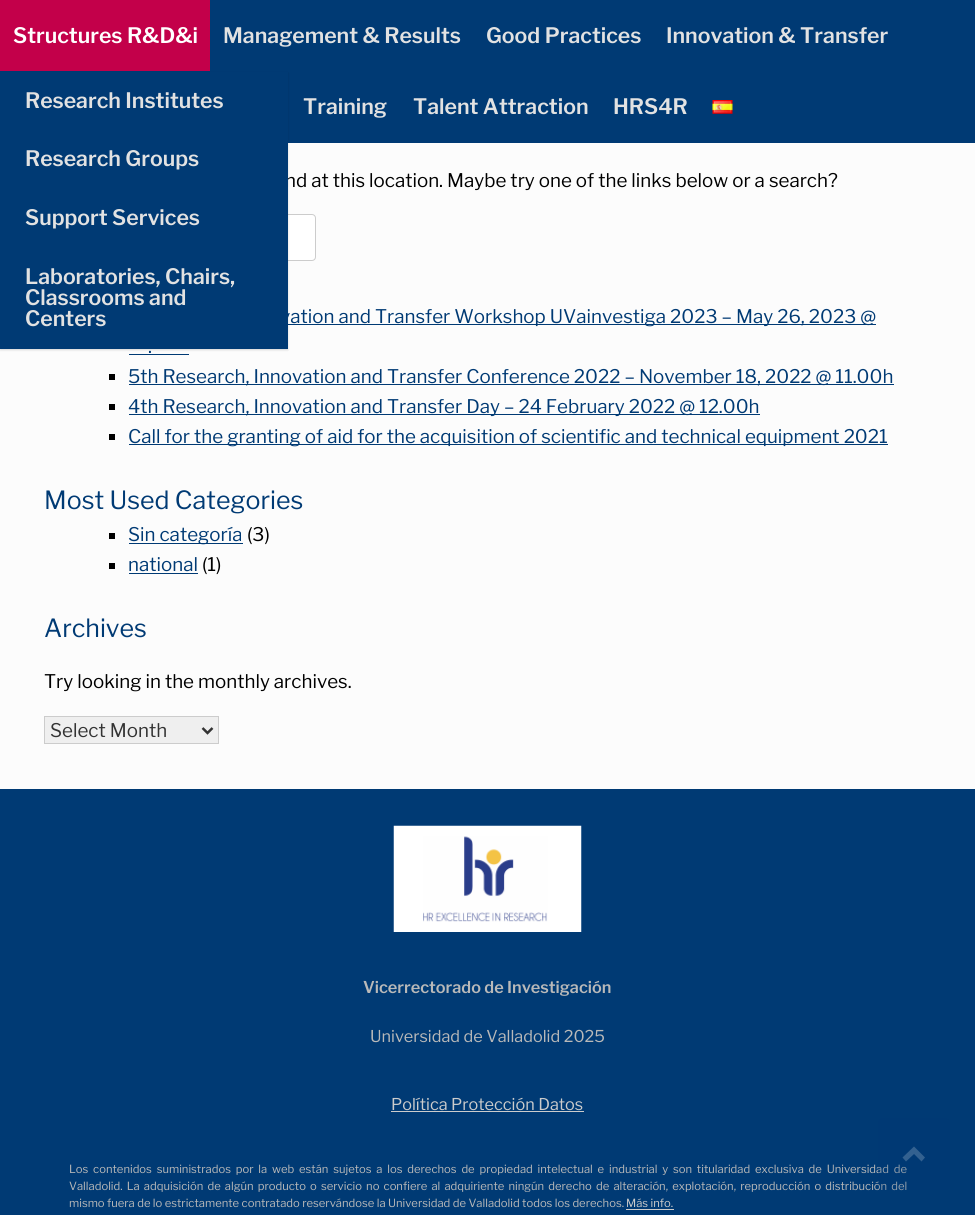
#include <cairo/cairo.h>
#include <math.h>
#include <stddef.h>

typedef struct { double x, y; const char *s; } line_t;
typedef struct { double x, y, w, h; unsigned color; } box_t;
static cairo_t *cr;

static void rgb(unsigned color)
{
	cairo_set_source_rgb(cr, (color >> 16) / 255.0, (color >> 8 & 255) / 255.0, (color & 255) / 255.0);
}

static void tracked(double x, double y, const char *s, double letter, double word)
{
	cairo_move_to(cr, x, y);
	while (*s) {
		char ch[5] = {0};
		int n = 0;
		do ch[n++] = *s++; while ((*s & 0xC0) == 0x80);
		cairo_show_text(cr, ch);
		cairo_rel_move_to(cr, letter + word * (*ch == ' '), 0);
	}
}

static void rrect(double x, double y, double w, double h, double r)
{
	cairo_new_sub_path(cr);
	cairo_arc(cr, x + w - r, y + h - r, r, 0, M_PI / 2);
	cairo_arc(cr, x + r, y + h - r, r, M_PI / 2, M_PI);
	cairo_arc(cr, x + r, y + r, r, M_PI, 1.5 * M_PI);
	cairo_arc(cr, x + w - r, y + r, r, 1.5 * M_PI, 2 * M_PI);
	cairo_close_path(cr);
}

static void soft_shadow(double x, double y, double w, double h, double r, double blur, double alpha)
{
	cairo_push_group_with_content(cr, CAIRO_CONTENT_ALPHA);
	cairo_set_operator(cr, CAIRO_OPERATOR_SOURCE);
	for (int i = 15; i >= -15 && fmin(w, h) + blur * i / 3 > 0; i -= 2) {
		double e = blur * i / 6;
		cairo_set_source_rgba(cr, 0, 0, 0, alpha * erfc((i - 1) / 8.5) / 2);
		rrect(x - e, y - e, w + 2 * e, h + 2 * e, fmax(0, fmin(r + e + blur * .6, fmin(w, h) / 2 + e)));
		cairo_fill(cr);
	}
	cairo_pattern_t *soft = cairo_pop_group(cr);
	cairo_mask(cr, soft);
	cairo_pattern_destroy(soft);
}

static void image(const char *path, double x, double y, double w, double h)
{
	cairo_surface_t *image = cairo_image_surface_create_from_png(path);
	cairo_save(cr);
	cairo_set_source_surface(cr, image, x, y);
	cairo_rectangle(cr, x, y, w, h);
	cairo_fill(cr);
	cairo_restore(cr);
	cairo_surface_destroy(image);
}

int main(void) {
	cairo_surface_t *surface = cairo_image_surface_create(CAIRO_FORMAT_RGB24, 975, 1215);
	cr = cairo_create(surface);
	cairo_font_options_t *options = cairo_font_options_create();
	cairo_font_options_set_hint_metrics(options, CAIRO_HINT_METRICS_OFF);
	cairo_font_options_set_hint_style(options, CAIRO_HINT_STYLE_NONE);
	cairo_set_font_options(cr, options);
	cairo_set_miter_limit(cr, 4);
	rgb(0x003a74);
	cairo_paint(cr);
	rgb(0xc3004a);
	cairo_rectangle(cr, 0, 0, 210, 71);
	cairo_fill(cr);
	rgb(0xfcfcfc);
	cairo_rectangle(cr, 0, 143, 975, 646);
	cairo_fill(cr);
	rgb(0xffffff);
	rrect(44.5, 214.5, 271, 46, 3.5);
	cairo_fill_preserve(cr);
	rgb(0xcccccc);
	cairo_set_line_width(cr, 1);
	cairo_stroke(cr);
	rgb(0x003a74);
	cairo_rectangle(cr, 288, 324, 588, 1);
	cairo_fill(cr);
	rgb(0x000000);
	soft_shadow(0, 73, 288, 277, 0, 1, 0.15);
	image("img/1.png", 712, 100, 21, 14);
	{
		static const box_t items[] = {
			{129, 354, 60, 1, 0x003a74},
			{109, 374, 6, 6, 0x000000},
			{129, 384, 765, 1, 0x003a74},
			{109, 404, 6, 6, 0x000000},
			{129, 414, 631, 1, 0x003a74},
			{109, 434, 6, 6, 0x000000},
			{129, 444, 759, 1, 0x003a74},
			{109, 533, 6, 6, 0x000000},
			{129, 543, 114, 1, 0x003a74},
			{109, 563, 6, 6, 0x000000},
			{129, 573, 69, 1, 0x003a74},
		};
		for (size_t i = 0; i < sizeof items / sizeof *items; i++) {
			rgb(items[i].color);
			cairo_rectangle(cr, items[i].x, items[i].y, items[i].w, items[i].h);
			cairo_fill(cr);
		}
	}
	rgb(0xefefef);
	cairo_rectangle(cr, 44.5, 716.5, 174, 27);
	cairo_fill_preserve(cr);
	rgb(0xcccccc);
	cairo_stroke(cr);
	cairo_new_path(cr);
	cairo_move_to(cr, 202.5, 728);
	cairo_line_to(cr, 207.5, 733);
	cairo_line_to(cr, 212.5, 728);
	rgb(0x333333);
	cairo_set_line_width(cr, 2.5);
	cairo_stroke(cr);
	image("img/2.png", 393, 825, 189, 107);
	rgb(0xcccccc);
	cairo_rectangle(cr, 391, 1111, 193, 1);
	cairo_fill(cr);
	cairo_rectangle(cr, 626, 1209, 48, 1);
	cairo_fill(cr);
	cairo_select_font_face(cr, "Libre Franklin SemiBold", CAIRO_FONT_SLANT_NORMAL, CAIRO_FONT_WEIGHT_NORMAL);
	cairo_set_font_size(cr, 21.25);
	rgb(0xffffff);
	cairo_move_to(cr, 13, 43);
	cairo_show_text(cr, "Structures R&D&i");
	rgb(0xe2e2e2);
	{
		static const line_t items[] = {
			{223, 43, "Management & Results"},
			{486, 43, "Good Practices"},
			{666, 43, "Innovation & Transfer"},
			{303, 114, "Training"},
			{413, 114, "Talent Attraction"},
			{613, 114, "HRS4R"},
		};
		for (size_t i = 0; i < sizeof items / sizeof *items; i++) {
			cairo_move_to(cr, items[i].x, items[i].y);
			cairo_show_text(cr, items[i].s);
		}
	}
	cairo_select_font_face(cr, "Libre Franklin", CAIRO_FONT_SLANT_NORMAL, CAIRO_FONT_WEIGHT_NORMAL);
	cairo_set_font_size(cr, 18.75);
	rgb(0x000000);
	cairo_move_to(cr, 285, 187);
	cairo_show_text(cr, "nd at this location. Maybe try one of the links below or a search?");
	rgb(0x003a74);
	cairo_rectangle(cr, 0, 72, 288, 277);
	cairo_fill(cr);
	cairo_select_font_face(cr, "Libre Franklin SemiBold", CAIRO_FONT_SLANT_NORMAL, CAIRO_FONT_WEIGHT_NORMAL);
	cairo_set_font_size(cr, 21.25);
	rgb(0xe2e2e2);
	{
		static const line_t items[] = {
			{25, 326, "Centers"},
			{25, 305, "Classrooms and"},
			{25, 284, "Laboratories, Chairs,"},
			{25, 225, "Support Services"},
			{25, 166, "Research Groups"},
			{25, 108, "Research Institutes"},
		};
		for (size_t i = 0; i < sizeof items / sizeof *items; i++) {
			cairo_move_to(cr, items[i].x, items[i].y);
			cairo_show_text(cr, items[i].s);
		}
	}
	cairo_select_font_face(cr, "Libre Franklin", CAIRO_FONT_SLANT_NORMAL, CAIRO_FONT_WEIGHT_NORMAL);
	cairo_set_font_size(cr, 18.75);
	rgb(0x003a74);
	{
		static const line_t items[] = {
			{280, 323, "vation and Transfer Workshop UVainvestiga 2023 – May 26, 2023 @"},
			{148, 353, "."},
			{128, 383, "5th Research, Innovation and Transfer Conference 2022 – November 18, 2022 @ 11.00h"},
			{128, 413, "4th Research, Innovation and Transfer Day – 24 February 2022 @ 12.00h"},
			{128, 443, "Call for the granting of aid for the acquisition of scientific and technical equipment 2021"},
		};
		for (size_t i = 0; i < sizeof items / sizeof *items; i++) {
			cairo_move_to(cr, items[i].x, items[i].y);
			cairo_show_text(cr, items[i].s);
		}
	}
	cairo_set_font_size(cr, 25);
	cairo_move_to(cr, 44, 509);
	cairo_show_text(cr, "Most Used Categories");
	cairo_set_font_size(cr, 18.75);
	cairo_move_to(cr, 128, 541);
	cairo_show_text(cr, "Sin categoría");
	rgb(0x000000);
	cairo_move_to(cr, 247, 541);
	cairo_show_text(cr, "(3)");
	rgb(0x003a74);
	cairo_move_to(cr, 128, 571);
	cairo_show_text(cr, "national");
	rgb(0x000000);
	cairo_move_to(cr, 202, 571);
	cairo_show_text(cr, "(1)");
	cairo_set_font_size(cr, 25);
	rgb(0x003a74);
	cairo_move_to(cr, 44, 637);
	cairo_show_text(cr, "Archives");
	cairo_set_font_size(cr, 18.75);
	rgb(0x000000);
	cairo_move_to(cr, 44, 688);
	cairo_show_text(cr, "Try looking in the monthly archives.");
	rgb(0x333333);
	cairo_move_to(cr, 50, 737);
	cairo_show_text(cr, "Select Month");
	cairo_select_font_face(cr, "Libre Franklin SemiBold", CAIRO_FONT_SLANT_NORMAL, CAIRO_FONT_WEIGHT_NORMAL);
	cairo_set_font_size(cr, 16.25);
	rgb(0xb9b9b9);
	cairo_move_to(cr, 363, 993);
	cairo_show_text(cr, "Vicerrectorado de Investigación");
	cairo_select_font_face(cr, "Libre Franklin", CAIRO_FONT_SLANT_NORMAL, CAIRO_FONT_WEIGHT_NORMAL);
	cairo_move_to(cr, 370, 1042);
	cairo_show_text(cr, "Universidad de Valladolid 2025");
	rgb(0xcccccc);
	cairo_move_to(cr, 391, 1110);
	cairo_show_text(cr, "Política Protección Datos");
	cairo_set_font_size(cr, 11.25);
	rgb(0xb9b9b9);
	tracked(69, 1173, "Los contenidos suministrados por la web están sujetos a los derechos de propiedad intelectual e industrial y son titularidad exclusiva de Universidad de", 0, 2.4);
	tracked(69, 1190, "Valladolid. La adquisición de algún producto o servicio no confiere al adquiriente ningún derecho de alteración, explotación, reproducción o distribución del", 0, 1.75);
	cairo_move_to(cr, 69, 1207);
	cairo_show_text(cr, "mismo fuera de lo estrictamente contratado reservándose la Universidad de Valladolid todos los derechos.");
	rgb(0xcccccc);
	cairo_move_to(cr, 626, 1207);
	cairo_show_text(cr, "Más info.");
	cairo_set_source_rgba(cr, 0, 0.227, 0.455, 0.2);
	rrect(878, 1118, 72, 72, 4);
	cairo_fill(cr);
	rgb(0x336190);
	cairo_new_path(cr);
	cairo_move_to(cr, 925, 1157.5);
	cairo_line_to(cr, 914, 1146.5);
	cairo_line_to(cr, 902.5, 1157.5);
	cairo_line_to(cr, 906, 1161.5);
	cairo_line_to(cr, 914, 1154);
	cairo_line_to(cr, 921.5, 1161.5);
	cairo_close_path(cr);
	cairo_fill(cr);
	cairo_surface_write_to_png(surface, "page.png");
	cairo_font_options_destroy(options);
	cairo_destroy(cr);
	cairo_surface_destroy(surface);
	return 0;
}
